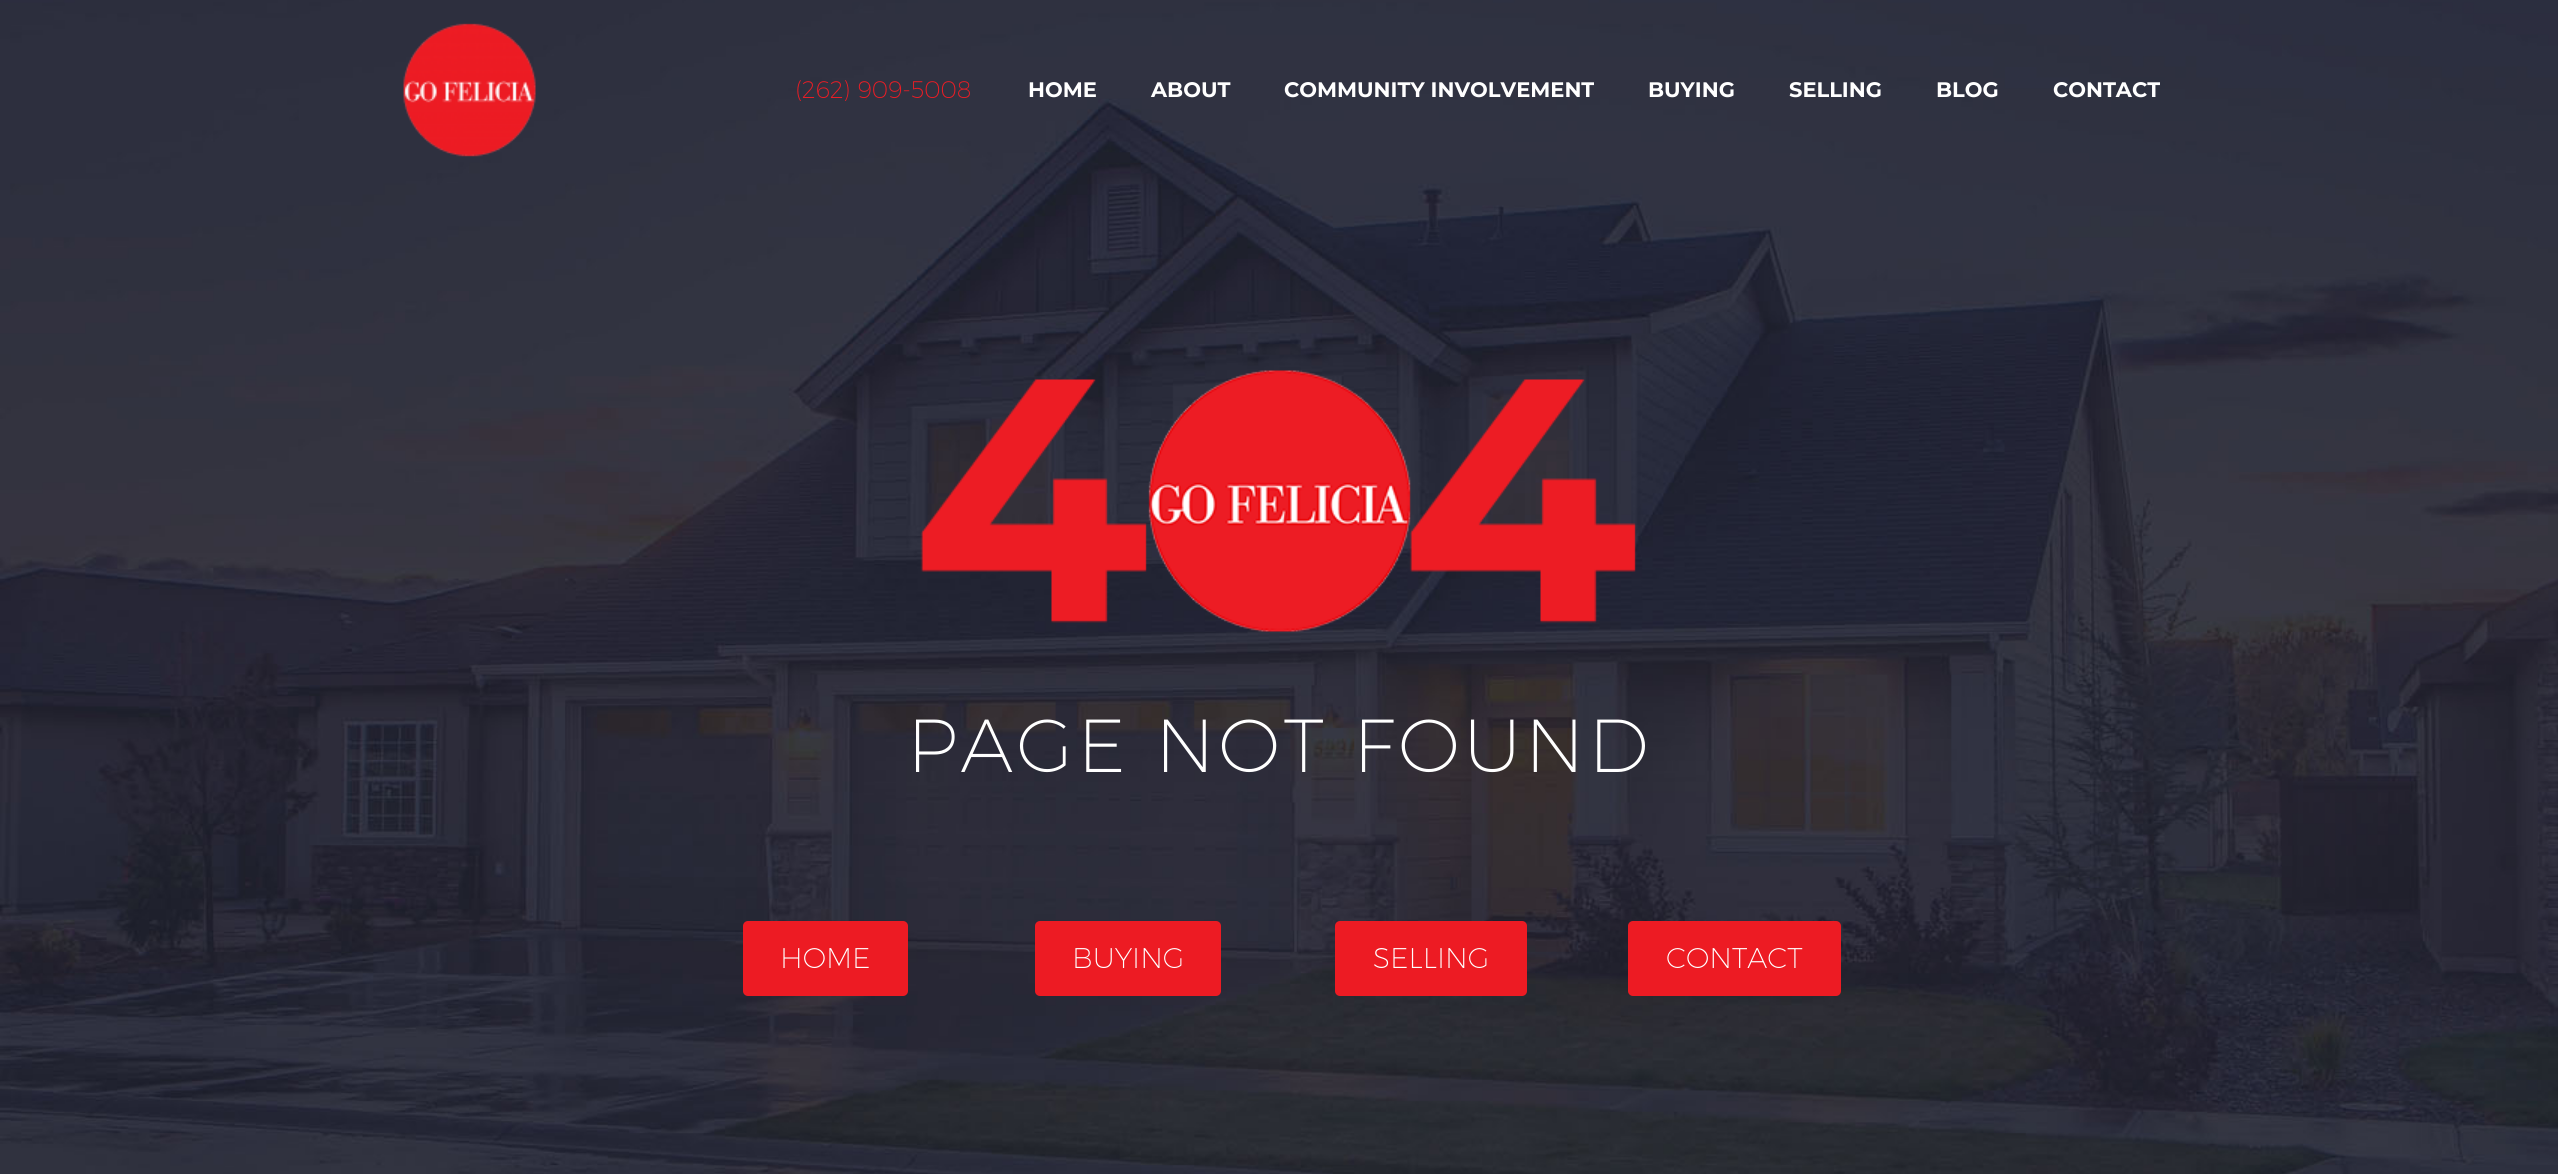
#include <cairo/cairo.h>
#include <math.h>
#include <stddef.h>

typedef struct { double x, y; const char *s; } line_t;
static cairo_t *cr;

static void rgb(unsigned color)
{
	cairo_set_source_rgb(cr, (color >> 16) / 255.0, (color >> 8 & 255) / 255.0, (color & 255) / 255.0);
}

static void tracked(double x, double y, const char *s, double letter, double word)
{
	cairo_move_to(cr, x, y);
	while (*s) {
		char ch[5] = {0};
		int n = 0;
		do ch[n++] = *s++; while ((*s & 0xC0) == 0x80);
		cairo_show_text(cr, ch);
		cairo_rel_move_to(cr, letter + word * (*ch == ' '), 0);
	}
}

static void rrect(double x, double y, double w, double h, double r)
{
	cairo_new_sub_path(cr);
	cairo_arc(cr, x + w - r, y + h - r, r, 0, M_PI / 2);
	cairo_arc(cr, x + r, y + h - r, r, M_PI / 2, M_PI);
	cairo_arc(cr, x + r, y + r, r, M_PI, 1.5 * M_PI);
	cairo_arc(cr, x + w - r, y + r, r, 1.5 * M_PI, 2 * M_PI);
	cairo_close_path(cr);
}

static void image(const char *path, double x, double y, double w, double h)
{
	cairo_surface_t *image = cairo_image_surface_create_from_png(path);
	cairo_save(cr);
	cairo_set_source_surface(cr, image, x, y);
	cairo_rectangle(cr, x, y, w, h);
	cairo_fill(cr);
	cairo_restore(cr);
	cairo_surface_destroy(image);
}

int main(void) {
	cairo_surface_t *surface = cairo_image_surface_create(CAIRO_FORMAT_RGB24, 2558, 1174);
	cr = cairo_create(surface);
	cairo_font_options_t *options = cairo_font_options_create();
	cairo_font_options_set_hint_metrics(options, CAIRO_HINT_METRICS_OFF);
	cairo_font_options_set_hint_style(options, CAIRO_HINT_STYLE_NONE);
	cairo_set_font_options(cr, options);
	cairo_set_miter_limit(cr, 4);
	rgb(0xffffff);
	cairo_paint(cr);
	image("img/2.png", 0, 0, 2558, 1174);
	image("img/1.png", 403, 23, 133, 134);
	image("img/3.png", 920, 370, 716, 262);
	rgb(0xed1b23);
	rrect(743, 921, 165, 75, 5);
	cairo_fill(cr);
	rrect(1035, 921, 186, 75, 5);
	cairo_fill(cr);
	rrect(1335, 921, 192, 75, 5);
	cairo_fill(cr);
	rrect(1628, 921, 213, 75, 5);
	cairo_fill(cr);
	cairo_select_font_face(cr, "Montserrat ExtraLight", CAIRO_FONT_SLANT_NORMAL, CAIRO_FONT_WEIGHT_NORMAL);
	cairo_set_font_size(cr, 24);
	rgb(0xed1c24);
	cairo_move_to(cr, 795, 98);
	cairo_show_text(cr, "(262) 909-5008");
	cairo_select_font_face(cr, "Montserrat", CAIRO_FONT_SLANT_NORMAL, CAIRO_FONT_WEIGHT_BOLD);
	cairo_set_font_size(cr, 21);
	rgb(0xffffff);
	{
		static const line_t items[] = {
			{1028, 97, "HOME"},
			{1151, 97, "ABOUT"},
			{1284, 97, "COMMUNITY INVOLVEMENT"},
			{1648, 97, "BUYING"},
			{1789, 97, "SELLING"},
			{1936, 97, "BLOG"},
			{2053, 97, "CONTACT"},
		};
		for (size_t i = 0; i < sizeof items / sizeof *items; i++) {
			cairo_move_to(cr, items[i].x, items[i].y);
			cairo_show_text(cr, items[i].s);
		}
	}
	cairo_select_font_face(cr, "Montserrat ExtraLight", CAIRO_FONT_SLANT_NORMAL, CAIRO_FONT_WEIGHT_NORMAL);
	cairo_set_font_size(cr, 75);
	tracked(907, 772, "PAGE NOT FOUND", 3.75, 0);
	cairo_set_font_size(cr, 28.5);
	{
		static const line_t items[] = {
			{780, 968, "HOME"},
			{1072, 968, "BUYING"},
			{1373, 968, "SELLING"},
			{1666, 968, "CONTACT"},
		};
		for (size_t i = 0; i < sizeof items / sizeof *items; i++) {
			cairo_move_to(cr, items[i].x, items[i].y);
			cairo_show_text(cr, items[i].s);
		}
	}
	cairo_surface_write_to_png(surface, "page.png");
	cairo_font_options_destroy(options);
	cairo_destroy(cr);
	cairo_surface_destroy(surface);
	return 0;
}
